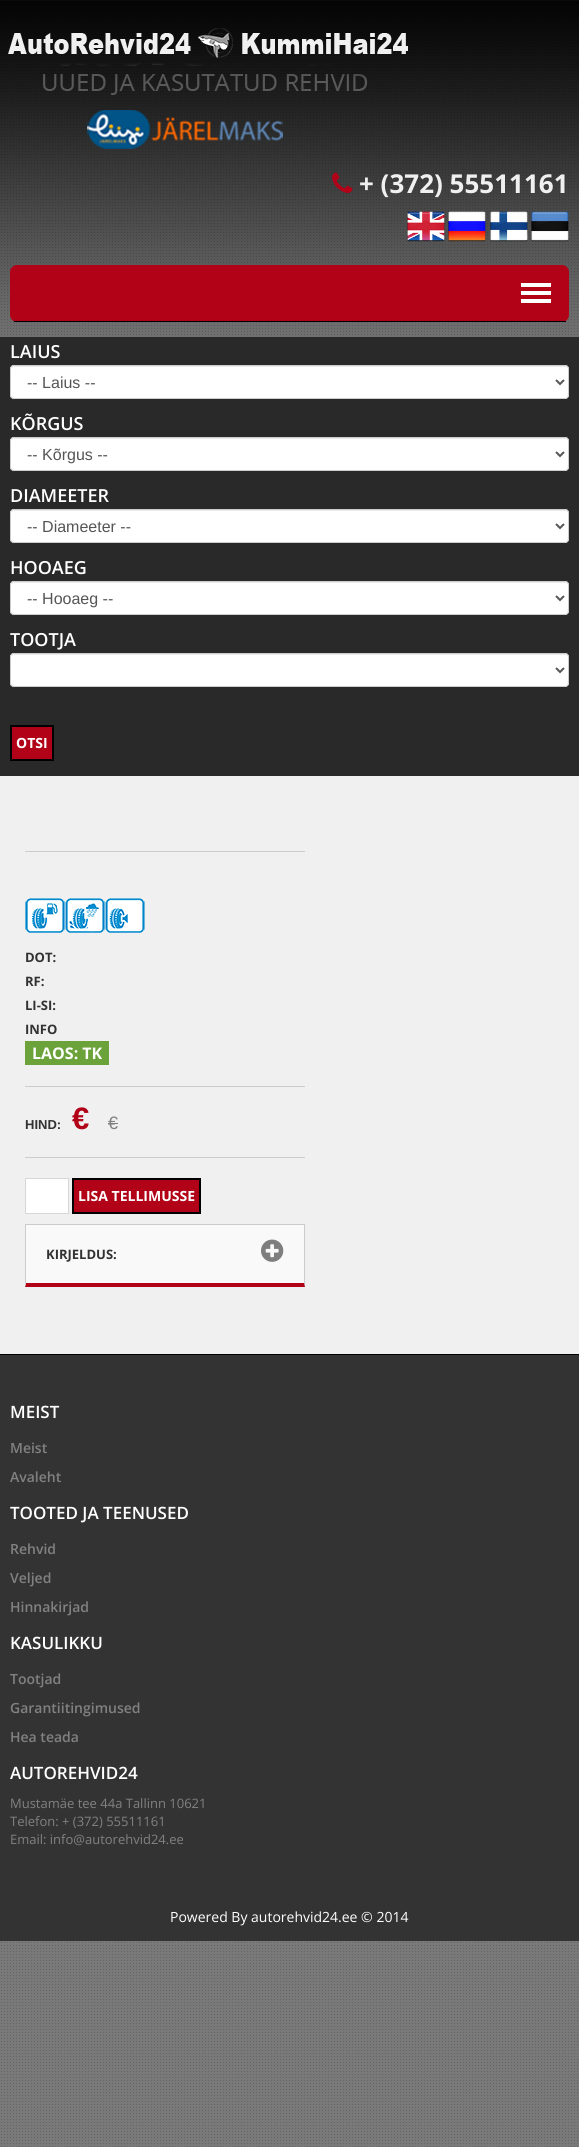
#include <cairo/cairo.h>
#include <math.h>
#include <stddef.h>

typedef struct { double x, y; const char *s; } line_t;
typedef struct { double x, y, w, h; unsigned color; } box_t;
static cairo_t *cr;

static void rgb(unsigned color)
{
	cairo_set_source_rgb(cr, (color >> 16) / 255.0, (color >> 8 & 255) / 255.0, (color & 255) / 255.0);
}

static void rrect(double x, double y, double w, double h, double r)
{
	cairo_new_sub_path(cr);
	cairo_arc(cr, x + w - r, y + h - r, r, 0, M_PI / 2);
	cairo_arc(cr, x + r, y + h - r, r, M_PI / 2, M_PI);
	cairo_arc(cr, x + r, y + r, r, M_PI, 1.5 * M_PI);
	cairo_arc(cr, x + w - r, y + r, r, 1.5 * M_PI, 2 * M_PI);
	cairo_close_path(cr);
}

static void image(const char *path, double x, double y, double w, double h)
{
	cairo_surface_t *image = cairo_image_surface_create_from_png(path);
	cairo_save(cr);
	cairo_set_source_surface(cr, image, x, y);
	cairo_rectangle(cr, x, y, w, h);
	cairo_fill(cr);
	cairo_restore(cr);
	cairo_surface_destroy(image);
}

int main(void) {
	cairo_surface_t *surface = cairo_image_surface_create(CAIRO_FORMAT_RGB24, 579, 2147);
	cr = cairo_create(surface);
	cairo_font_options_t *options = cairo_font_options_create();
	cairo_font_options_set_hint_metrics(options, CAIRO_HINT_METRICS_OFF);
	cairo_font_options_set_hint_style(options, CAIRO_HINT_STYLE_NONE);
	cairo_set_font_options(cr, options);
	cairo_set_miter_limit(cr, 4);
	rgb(0xffffff);
	cairo_paint(cr);
	image("img/1.png", 0, 0, 579, 2147);
	image("img/2.png", 0, 0, 579, 337);
	image("img/3.png", 8, 28, 400, 67);
	image("img/4.png", 87, 110, 196, 39);
	image("img/5.png", 332, 172, 21, 21);
	image("img/6.png", 407, 211, 38, 31);
	image("img/7.png", 448, 211, 38, 31);
	image("img/8.png", 490, 211, 38, 31);
	image("img/9.png", 531, 211, 38, 31);
	rgb(0xb10217);
	rrect(10, 265, 559, 57, 7);
	cairo_fill(cr);
	{
		static const box_t items[] = {
			{14, 321, 552, 1, 0x000000},
			{521, 283, 30, 4, 0xffffff},
			{521, 291, 30, 4, 0xffffff},
			{521, 299, 30, 4, 0xffffff},
			{0, 337, 579, 439, 0x292929},
		};
		for (size_t i = 0; i < sizeof items / sizeof *items; i++) {
			rgb(items[i].color);
			cairo_rectangle(cr, items[i].x, items[i].y, items[i].w, items[i].h);
			cairo_fill(cr);
		}
	}
	rgb(0xffffff);
	rrect(10, 365, 559, 34, 4);
	cairo_fill(cr);
	rgb(0xececec);
	cairo_new_path(cr);
	cairo_move_to(cr, 14, 367);
	cairo_line_to(cr, 565, 367);
	cairo_curve_to(cr, 567, 367, 568, 368, 568, 370);
	cairo_curve_to(cr, 568, 368, 567, 366, 565, 366);
	cairo_line_to(cr, 14, 366);
	cairo_line_to(cr, 12, 367);
	cairo_line_to(cr, 11, 368);
	cairo_line_to(cr, 11, 370);
	cairo_curve_to(cr, 11, 368, 12, 367, 14, 367);
	cairo_close_path(cr);
	cairo_fill(cr);
	rrect(10.5, 365.5, 558, 33, 3.5);
	rgb(0xcccccc);
	cairo_set_line_width(cr, 1);
	cairo_stroke(cr);
	cairo_new_path(cr);
	cairo_move_to(cr, 556, 380);
	cairo_line_to(cr, 560, 384);
	cairo_line_to(cr, 564, 380);
	rgb(0x555555);
	cairo_set_line_width(cr, 2);
	cairo_stroke(cr);
	rgb(0xffffff);
	rrect(10, 437, 559, 34, 4);
	cairo_fill(cr);
	rgb(0xececec);
	cairo_new_path(cr);
	cairo_move_to(cr, 14, 439);
	cairo_line_to(cr, 565, 439);
	cairo_curve_to(cr, 567, 439, 568, 440, 568, 442);
	cairo_curve_to(cr, 568, 440, 567, 438, 565, 438);
	cairo_line_to(cr, 14, 438);
	cairo_line_to(cr, 12, 439);
	cairo_line_to(cr, 11, 440);
	cairo_line_to(cr, 11, 442);
	cairo_curve_to(cr, 11, 440, 12, 439, 14, 439);
	cairo_close_path(cr);
	cairo_fill(cr);
	rrect(10.5, 437.5, 558, 33, 3.5);
	rgb(0xcccccc);
	cairo_set_line_width(cr, 1);
	cairo_stroke(cr);
	cairo_new_path(cr);
	cairo_move_to(cr, 556, 452);
	cairo_line_to(cr, 560, 456);
	cairo_line_to(cr, 564, 452);
	rgb(0x555555);
	cairo_set_line_width(cr, 2);
	cairo_stroke(cr);
	rgb(0xffffff);
	rrect(10, 509, 559, 34, 4);
	cairo_fill(cr);
	rgb(0xececec);
	cairo_new_path(cr);
	cairo_move_to(cr, 14, 511);
	cairo_line_to(cr, 565, 511);
	cairo_curve_to(cr, 567, 511, 568, 512, 568, 514);
	cairo_curve_to(cr, 568, 512, 567, 510, 565, 510);
	cairo_line_to(cr, 14, 510);
	cairo_line_to(cr, 12, 511);
	cairo_line_to(cr, 11, 512);
	cairo_line_to(cr, 11, 514);
	cairo_curve_to(cr, 11, 512, 12, 511, 14, 511);
	cairo_close_path(cr);
	cairo_fill(cr);
	rrect(10.5, 509.5, 558, 33, 3.5);
	rgb(0xcccccc);
	cairo_set_line_width(cr, 1);
	cairo_stroke(cr);
	cairo_new_path(cr);
	cairo_move_to(cr, 556, 524);
	cairo_line_to(cr, 560, 528);
	cairo_line_to(cr, 564, 524);
	rgb(0x555555);
	cairo_set_line_width(cr, 2);
	cairo_stroke(cr);
	rgb(0xffffff);
	rrect(10, 581, 559, 34, 4);
	cairo_fill(cr);
	rgb(0xececec);
	cairo_new_path(cr);
	cairo_move_to(cr, 14, 583);
	cairo_line_to(cr, 565, 583);
	cairo_curve_to(cr, 567, 583, 568, 584, 568, 586);
	cairo_curve_to(cr, 568, 584, 567, 582, 565, 582);
	cairo_line_to(cr, 14, 582);
	cairo_line_to(cr, 12, 583);
	cairo_line_to(cr, 11, 584);
	cairo_line_to(cr, 11, 586);
	cairo_curve_to(cr, 11, 584, 12, 583, 14, 583);
	cairo_close_path(cr);
	cairo_fill(cr);
	rrect(10.5, 581.5, 558, 33, 3.5);
	rgb(0xcccccc);
	cairo_set_line_width(cr, 1);
	cairo_stroke(cr);
	cairo_new_path(cr);
	cairo_move_to(cr, 556, 596);
	cairo_line_to(cr, 560, 600);
	cairo_line_to(cr, 564, 596);
	rgb(0x555555);
	cairo_set_line_width(cr, 2);
	cairo_stroke(cr);
	rgb(0xffffff);
	rrect(10, 653, 559, 34, 4);
	cairo_fill(cr);
	rgb(0xececec);
	cairo_new_path(cr);
	cairo_move_to(cr, 14, 655);
	cairo_line_to(cr, 565, 655);
	cairo_curve_to(cr, 567, 655, 568, 656, 568, 658);
	cairo_curve_to(cr, 568, 656, 567, 654, 565, 654);
	cairo_line_to(cr, 14, 654);
	cairo_line_to(cr, 12, 655);
	cairo_line_to(cr, 11, 656);
	cairo_line_to(cr, 11, 658);
	cairo_curve_to(cr, 11, 656, 12, 655, 14, 655);
	cairo_close_path(cr);
	cairo_fill(cr);
	rrect(10.5, 653.5, 558, 33, 3.5);
	rgb(0xcccccc);
	cairo_set_line_width(cr, 1);
	cairo_stroke(cr);
	cairo_new_path(cr);
	cairo_move_to(cr, 556, 668);
	cairo_line_to(cr, 560, 672);
	cairo_line_to(cr, 564, 668);
	rgb(0x555555);
	cairo_set_line_width(cr, 2);
	cairo_stroke(cr);
	rgb(0xb10217);
	cairo_new_path(cr);
	cairo_move_to(cr, 11, 726);
	cairo_line_to(cr, 53, 726);
	cairo_line_to(cr, 53, 760);
	cairo_line_to(cr, 11, 760);
	cairo_close_path(cr);
	cairo_fill_preserve(cr);
	rgb(0x000000);
	cairo_stroke(cr);
	rgb(0xf0f0f0);
	cairo_rectangle(cr, 0, 776, 579, 578);
	cairo_fill(cr);
	rgb(0xcccccc);
	cairo_rectangle(cr, 25, 851, 280, 1);
	cairo_fill(cr);
	image("img/10.png", 25, 898, 40, 35);
	image("img/11.png", 65, 898, 40, 35);
	image("img/12.png", 105, 898, 40, 35);
	{
		static const box_t items[] = {
			{25, 1041, 84, 24, 0x6ba239},
			{25, 1086, 280, 1, 0xcccccc},
			{25, 1157, 280, 1, 0xcccccc},
		};
		for (size_t i = 0; i < sizeof items / sizeof *items; i++) {
			rgb(items[i].color);
			cairo_rectangle(cr, items[i].x, items[i].y, items[i].w, items[i].h);
			cairo_fill(cr);
		}
	}
	rgb(0xffffff);
	cairo_rectangle(cr, 25.5, 1178.5, 43, 35);
	cairo_fill_preserve(cr);
	rgb(0xd7d7d7);
	cairo_set_line_width(cr, 1);
	cairo_stroke(cr);
	rgb(0xb10217);
	cairo_new_path(cr);
	cairo_move_to(cr, 73, 1179);
	cairo_line_to(cr, 200, 1179);
	cairo_line_to(cr, 200, 1213);
	cairo_line_to(cr, 73, 1213);
	cairo_close_path(cr);
	cairo_fill_preserve(cr);
	rgb(0x000000);
	cairo_set_line_width(cr, 2);
	cairo_stroke(cr);
	rgb(0xf9f9f9);
	cairo_rectangle(cr, 26, 1225, 278, 58);
	cairo_fill(cr);
	rgb(0xcccccc);
	cairo_rectangle(cr, 25, 1224, 280, 1);
	cairo_fill(cr);
	cairo_new_path(cr);
	cairo_move_to(cr, 305, 1224);
	cairo_line_to(cr, 305, 1287);
	cairo_line_to(cr, 304, 1283);
	cairo_line_to(cr, 304, 1225);
	cairo_close_path(cr);
	cairo_fill(cr);
	rgb(0xb10217);
	cairo_new_path(cr);
	cairo_move_to(cr, 305, 1287);
	cairo_line_to(cr, 25, 1287);
	cairo_line_to(cr, 26, 1283);
	cairo_line_to(cr, 304, 1283);
	cairo_close_path(cr);
	cairo_fill(cr);
	rgb(0xcccccc);
	cairo_new_path(cr);
	cairo_move_to(cr, 25, 1287);
	cairo_line_to(cr, 25, 1224);
	cairo_line_to(cr, 26, 1225);
	cairo_line_to(cr, 26, 1283);
	cairo_close_path(cr);
	cairo_fill(cr);
	image("img/13.png", 261, 1239, 23, 23);
	rgb(0x333333);
	cairo_rectangle(cr, 0, 1355, 579, 586);
	cairo_fill(cr);
	rgb(0x000000);
	cairo_rectangle(cr, 0, 1354, 579, 1);
	cairo_fill(cr);
	cairo_select_font_face(cr, "Open Sans", CAIRO_FONT_SLANT_NORMAL, CAIRO_FONT_WEIGHT_BOLD);
	cairo_set_font_size(cr, 26);
	rgb(0xf0f0f0);
	cairo_move_to(cr, 359, 193);
	cairo_show_text(cr, "+ (372) 55511161");
	cairo_select_font_face(cr, "Open Sans SemiBold", CAIRO_FONT_SLANT_NORMAL, CAIRO_FONT_WEIGHT_NORMAL);
	cairo_set_font_size(cr, 18);
	rgb(0xffffff);
	cairo_move_to(cr, 10, 358);
	cairo_show_text(cr, "LAIUS");
	cairo_select_font_face(cr, "Liberation Sans", CAIRO_FONT_SLANT_NORMAL, CAIRO_FONT_WEIGHT_NORMAL);
	cairo_set_font_size(cr, 16);
	rgb(0x555555);
	cairo_move_to(cr, 27, 388);
	cairo_show_text(cr, "-- Laius --");
	cairo_select_font_face(cr, "Open Sans SemiBold", CAIRO_FONT_SLANT_NORMAL, CAIRO_FONT_WEIGHT_NORMAL);
	cairo_set_font_size(cr, 18);
	rgb(0xffffff);
	cairo_move_to(cr, 10, 430);
	cairo_show_text(cr, "KÕRGUS");
	cairo_select_font_face(cr, "Liberation Sans", CAIRO_FONT_SLANT_NORMAL, CAIRO_FONT_WEIGHT_NORMAL);
	cairo_set_font_size(cr, 16);
	rgb(0x555555);
	cairo_move_to(cr, 27, 460);
	cairo_show_text(cr, "-- Kõrgus --");
	cairo_select_font_face(cr, "Open Sans SemiBold", CAIRO_FONT_SLANT_NORMAL, CAIRO_FONT_WEIGHT_NORMAL);
	cairo_set_font_size(cr, 18);
	rgb(0xffffff);
	cairo_move_to(cr, 10, 502);
	cairo_show_text(cr, "DIAMEETER");
	cairo_select_font_face(cr, "Liberation Sans", CAIRO_FONT_SLANT_NORMAL, CAIRO_FONT_WEIGHT_NORMAL);
	cairo_set_font_size(cr, 16);
	rgb(0x555555);
	cairo_move_to(cr, 27, 532);
	cairo_show_text(cr, "-- Diameeter --");
	cairo_select_font_face(cr, "Open Sans SemiBold", CAIRO_FONT_SLANT_NORMAL, CAIRO_FONT_WEIGHT_NORMAL);
	cairo_set_font_size(cr, 18);
	rgb(0xffffff);
	cairo_move_to(cr, 10, 574);
	cairo_show_text(cr, "HOOAEG");
	cairo_select_font_face(cr, "Liberation Sans", CAIRO_FONT_SLANT_NORMAL, CAIRO_FONT_WEIGHT_NORMAL);
	cairo_set_font_size(cr, 16);
	rgb(0x555555);
	cairo_move_to(cr, 27, 604);
	cairo_show_text(cr, "-- Hooaeg --");
	cairo_select_font_face(cr, "Open Sans SemiBold", CAIRO_FONT_SLANT_NORMAL, CAIRO_FONT_WEIGHT_NORMAL);
	cairo_set_font_size(cr, 18);
	rgb(0xffffff);
	cairo_move_to(cr, 10, 646);
	cairo_show_text(cr, "TOOTJA");
	cairo_select_font_face(cr, "Open Sans", CAIRO_FONT_SLANT_NORMAL, CAIRO_FONT_WEIGHT_BOLD);
	cairo_set_font_size(cr, 14);
	cairo_move_to(cr, 16, 748);
	cairo_show_text(cr, "OTSI");
	cairo_set_font_size(cr, 13);
	rgb(0x323232);
	{
		static const line_t items[] = {
			{25, 962, "DOT:"},
			{25, 986, "RF:"},
			{25, 1010, "LI-SI:"},
			{25, 1034, "INFO"},
		};
		for (size_t i = 0; i < sizeof items / sizeof *items; i++) {
			cairo_move_to(cr, items[i].x, items[i].y);
			cairo_show_text(cr, items[i].s);
		}
	}
	cairo_set_font_size(cr, 16);
	rgb(0xffffff);
	cairo_move_to(cr, 32, 1059);
	cairo_show_text(cr, "LAOS: TK");
	cairo_select_font_face(cr, "Liberation Sans", CAIRO_FONT_SLANT_NORMAL, CAIRO_FONT_WEIGHT_BOLD);
	cairo_set_font_size(cr, 13);
	rgb(0x323232);
	cairo_move_to(cr, 25, 1129);
	cairo_show_text(cr, "HIND:");
	cairo_set_font_size(cr, 31);
	rgb(0xb10217);
	cairo_move_to(cr, 72, 1129);
	cairo_show_text(cr, "€");
	cairo_select_font_face(cr, "Liberation Sans", CAIRO_FONT_SLANT_NORMAL, CAIRO_FONT_WEIGHT_NORMAL);
	cairo_set_font_size(cr, 18);
	rgb(0x828181);
	cairo_move_to(cr, 108, 1129);
	cairo_show_text(cr, "€");
	rgb(0x7e7e7e);
	cairo_rectangle(cr, 108, 1123, 10, 1);
	cairo_fill(cr);
	cairo_select_font_face(cr, "Open Sans", CAIRO_FONT_SLANT_NORMAL, CAIRO_FONT_WEIGHT_BOLD);
	cairo_set_font_size(cr, 14);
	rgb(0xffffff);
	cairo_move_to(cr, 78, 1201);
	cairo_show_text(cr, "LISA TELLIMUSSE");
	cairo_set_font_size(cr, 13);
	rgb(0x323232);
	cairo_move_to(cr, 46, 1259);
	cairo_show_text(cr, "KIRJELDUS:");
	cairo_select_font_face(cr, "Open Sans SemiBold", CAIRO_FONT_SLANT_NORMAL, CAIRO_FONT_WEIGHT_NORMAL);
	cairo_set_font_size(cr, 17);
	rgb(0xffffff);
	cairo_move_to(cr, 10, 1418);
	cairo_show_text(cr, "MEIST");
	cairo_set_font_size(cr, 14);
	rgb(0x828181);
	cairo_move_to(cr, 10, 1453);
	cairo_show_text(cr, "Meist");
	cairo_move_to(cr, 10, 1482);
	cairo_show_text(cr, "Avaleht");
	cairo_set_font_size(cr, 17);
	rgb(0xffffff);
	cairo_move_to(cr, 10, 1519);
	cairo_show_text(cr, "TOOTED JA TEENUSED");
	cairo_set_font_size(cr, 14);
	rgb(0x828181);
	{
		static const line_t items[] = {
			{10, 1554, "Rehvid"},
			{10, 1583, "Veljed"},
			{10, 1612, "Hinnakirjad"},
		};
		for (size_t i = 0; i < sizeof items / sizeof *items; i++) {
			cairo_move_to(cr, items[i].x, items[i].y);
			cairo_show_text(cr, items[i].s);
		}
	}
	cairo_set_font_size(cr, 17);
	rgb(0xffffff);
	cairo_move_to(cr, 10, 1649);
	cairo_show_text(cr, "KASULIKKU");
	cairo_set_font_size(cr, 14);
	rgb(0x828181);
	{
		static const line_t items[] = {
			{10, 1684, "Tootjad"},
			{10, 1713, "Garantiitingimused"},
			{10, 1742, "Hea teada"},
		};
		for (size_t i = 0; i < sizeof items / sizeof *items; i++) {
			cairo_move_to(cr, items[i].x, items[i].y);
			cairo_show_text(cr, items[i].s);
		}
	}
	cairo_set_font_size(cr, 17);
	rgb(0xffffff);
	cairo_move_to(cr, 10, 1779);
	cairo_show_text(cr, "AUTOREHVID24");
	cairo_select_font_face(cr, "Open Sans", CAIRO_FONT_SLANT_NORMAL, CAIRO_FONT_WEIGHT_NORMAL);
	cairo_set_font_size(cr, 13);
	rgb(0x828181);
	{
		static const line_t items[] = {
			{10, 1808, "Mustamäe tee 44a Tallinn 10621"},
			{10, 1826, "Telefon: + (372) 55511161"},
			{10, 1844, "Email: info@autorehvid24.ee"},
		};
		for (size_t i = 0; i < sizeof items / sizeof *items; i++) {
			cairo_move_to(cr, items[i].x, items[i].y);
			cairo_show_text(cr, items[i].s);
		}
	}
	cairo_set_font_size(cr, 14);
	rgb(0xffffff);
	cairo_move_to(cr, 170, 1922);
	cairo_show_text(cr, "Powered By autorehvid24.ee © 2014");
	cairo_surface_write_to_png(surface, "page.png");
	cairo_font_options_destroy(options);
	cairo_destroy(cr);
	cairo_surface_destroy(surface);
	return 0;
}
